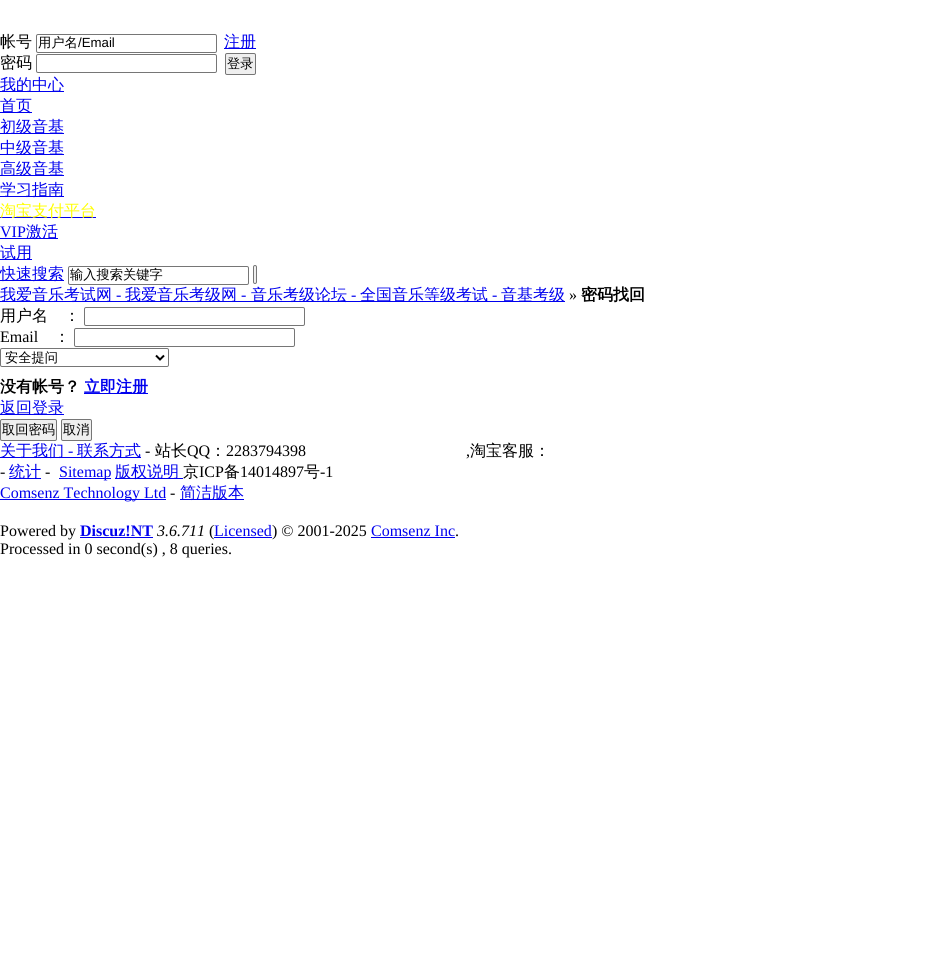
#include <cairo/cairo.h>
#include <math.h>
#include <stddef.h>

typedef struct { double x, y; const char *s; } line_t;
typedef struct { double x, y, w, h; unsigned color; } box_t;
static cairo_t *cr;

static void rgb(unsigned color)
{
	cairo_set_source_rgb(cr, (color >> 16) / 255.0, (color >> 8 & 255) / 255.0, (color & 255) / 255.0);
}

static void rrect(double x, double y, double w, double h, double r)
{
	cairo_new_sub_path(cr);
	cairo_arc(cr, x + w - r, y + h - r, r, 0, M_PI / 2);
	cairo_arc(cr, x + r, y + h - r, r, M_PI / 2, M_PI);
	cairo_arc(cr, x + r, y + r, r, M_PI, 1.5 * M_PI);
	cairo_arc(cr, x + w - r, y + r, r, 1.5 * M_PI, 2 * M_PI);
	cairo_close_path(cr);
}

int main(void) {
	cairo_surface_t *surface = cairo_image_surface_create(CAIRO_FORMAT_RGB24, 927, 961);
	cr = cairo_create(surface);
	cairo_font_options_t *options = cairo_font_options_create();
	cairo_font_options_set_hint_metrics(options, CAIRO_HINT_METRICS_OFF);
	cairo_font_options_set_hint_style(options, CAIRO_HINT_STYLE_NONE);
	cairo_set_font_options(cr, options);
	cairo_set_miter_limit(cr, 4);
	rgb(0xffffff);
	cairo_paint(cr);
	rrect(36.5, 34.5, 180, 18, 1.5);
	rgb(0x767676);
	cairo_set_line_width(cr, 1);
	cairo_stroke(cr);
	rgb(0x0000ee);
	cairo_rectangle(cr, 224, 48, 32, 1);
	cairo_fill(cr);
	rrect(36.5, 54.5, 180, 18, 1.5);
	rgb(0x767676);
	cairo_stroke(cr);
	rgb(0xefefef);
	rrect(225.5, 53.5, 30, 21, 1.5);
	cairo_fill_preserve(cr);
	rgb(0x767676);
	cairo_stroke(cr);
	{
		static const box_t items[] = {
			{0, 91, 64, 1, 0x0000ee},
			{0, 112, 32, 1, 0x0000ee},
			{0, 133, 64, 1, 0x0000ee},
			{0, 154, 64, 1, 0x0000ee},
			{0, 175, 64, 1, 0x0000ee},
			{0, 196, 64, 1, 0x0000ee},
			{0, 217, 96, 1, 0x0000ee},
			{0, 238, 58, 1, 0x0000ee},
			{0, 259, 32, 1, 0x0000ee},
			{0, 280, 64, 1, 0x0000ee},
		};
		for (size_t i = 0; i < sizeof items / sizeof *items; i++) {
			rgb(items[i].color);
			cairo_rectangle(cr, items[i].x, items[i].y, items[i].w, items[i].h);
			cairo_fill(cr);
		}
	}
	rrect(68.5, 266.5, 180, 18, 1.5);
	rgb(0x767676);
	cairo_stroke(cr);
	rgb(0xefefef);
	rrect(253.5, 265.5, 3, 18, 1.5);
	cairo_fill_preserve(cr);
	rgb(0x767676);
	cairo_stroke(cr);
	rgb(0x0000ee);
	cairo_rectangle(cr, 0, 301, 565, 1);
	cairo_fill(cr);
	rrect(84.5, 307.5, 220, 18, 1.5);
	rgb(0x767676);
	cairo_stroke(cr);
	rrect(74.5, 328.5, 220, 18, 1.5);
	cairo_stroke(cr);
	rrect(0.5, 348.5, 168, 18, 1.5);
	cairo_stroke(cr);
	cairo_new_path(cr);
	cairo_move_to(cr, 156, 355.5);
	cairo_line_to(cr, 160, 359.5);
	cairo_line_to(cr, 164, 355.5);
	rgb(0x000000);
	cairo_set_line_width(cr, 2);
	cairo_stroke(cr);
	rgb(0x0000ee);
	cairo_rectangle(cr, 84, 393, 64, 1);
	cairo_fill(cr);
	cairo_rectangle(cr, 0, 414, 64, 1);
	cairo_fill(cr);
	rgb(0xefefef);
	rrect(0.5, 419.5, 56, 21, 1.5);
	cairo_fill_preserve(cr);
	rgb(0x767676);
	cairo_set_line_width(cr, 1);
	cairo_stroke(cr);
	rgb(0xefefef);
	rrect(61.5, 419.5, 30, 21, 1.5);
	cairo_fill_preserve(cr);
	rgb(0x767676);
	cairo_stroke(cr);
	{
		static const box_t items[] = {
			{0, 457, 141, 1, 0x0000ee},
			{9, 478, 32, 1, 0x0000ee},
			{59, 478, 52, 1, 0x0000ee},
			{115, 478, 68, 1, 0x0000ee},
			{0, 499, 166, 1, 0x0000ee},
			{180, 499, 64, 1, 0x0000ee},
			{80, 537, 73, 1, 0x0000ee},
			{214, 537, 58, 1, 0x0000ee},
			{371, 537, 84, 1, 0x0000ee},
		};
		for (size_t i = 0; i < sizeof items / sizeof *items; i++) {
			rgb(items[i].color);
			cairo_rectangle(cr, items[i].x, items[i].y, items[i].w, items[i].h);
			cairo_fill(cr);
		}
	}
	cairo_select_font_face(cr, "WenQuanYi Zen Hei Medium", CAIRO_FONT_SLANT_NORMAL, CAIRO_FONT_WEIGHT_NORMAL);
	cairo_set_font_size(cr, 16);
	rgb(0x000000);
	cairo_move_to(cr, 0, 47);
	cairo_show_text(cr, "帐号");
	cairo_set_font_size(cr, 13.25);
	cairo_move_to(cr, 38, 47);
	cairo_show_text(cr, "用户名");
	cairo_select_font_face(cr, "Liberation Sans", CAIRO_FONT_SLANT_NORMAL, CAIRO_FONT_WEIGHT_NORMAL);
	cairo_move_to(cr, 78, 47);
	cairo_show_text(cr, "/Email");
	cairo_select_font_face(cr, "WenQuanYi Zen Hei Medium", CAIRO_FONT_SLANT_NORMAL, CAIRO_FONT_WEIGHT_NORMAL);
	cairo_set_font_size(cr, 16);
	rgb(0x0000ee);
	cairo_move_to(cr, 224, 47);
	cairo_show_text(cr, "注册");
	rgb(0x000000);
	cairo_move_to(cr, 0, 68);
	cairo_show_text(cr, "密码");
	cairo_set_font_size(cr, 13.25);
	cairo_move_to(cr, 227, 68);
	cairo_show_text(cr, "登录");
	cairo_set_font_size(cr, 16);
	rgb(0x0000ee);
	{
		static const line_t items[] = {
			{0, 90, "我的中心"},
			{0, 111, "首页"},
			{0, 132, "初级音基"},
			{0, 153, "中级音基"},
			{0, 174, "高级音基"},
			{0, 195, "学习指南"},
		};
		for (size_t i = 0; i < sizeof items / sizeof *items; i++) {
			cairo_move_to(cr, items[i].x, items[i].y);
			cairo_show_text(cr, items[i].s);
		}
	}
	rgb(0xffff00);
	cairo_move_to(cr, 0, 216);
	cairo_show_text(cr, "淘宝支付平台");
	cairo_select_font_face(cr, "Liberation Serif", CAIRO_FONT_SLANT_NORMAL, CAIRO_FONT_WEIGHT_NORMAL);
	rgb(0x0000ee);
	cairo_move_to(cr, 0, 237);
	cairo_show_text(cr, "VIP");
	cairo_select_font_face(cr, "WenQuanYi Zen Hei Medium", CAIRO_FONT_SLANT_NORMAL, CAIRO_FONT_WEIGHT_NORMAL);
	{
		static const line_t items[] = {
			{26, 237, "激活"},
			{0, 258, "试用"},
			{0, 279, "快速搜索"},
		};
		for (size_t i = 0; i < sizeof items / sizeof *items; i++) {
			cairo_move_to(cr, items[i].x, items[i].y);
			cairo_show_text(cr, items[i].s);
		}
	}
	cairo_set_font_size(cr, 13.25);
	rgb(0x000000);
	cairo_move_to(cr, 70, 279);
	cairo_show_text(cr, "输入搜索关键字");
	cairo_set_font_size(cr, 16);
	rgb(0x0000ee);
	cairo_move_to(cr, 0, 300);
	cairo_show_text(cr, "我爱音乐考试网");
	cairo_select_font_face(cr, "Liberation Serif", CAIRO_FONT_SLANT_NORMAL, CAIRO_FONT_WEIGHT_NORMAL);
	cairo_move_to(cr, 116, 300);
	cairo_show_text(cr, "-");
	cairo_select_font_face(cr, "WenQuanYi Zen Hei Medium", CAIRO_FONT_SLANT_NORMAL, CAIRO_FONT_WEIGHT_NORMAL);
	cairo_move_to(cr, 125, 300);
	cairo_show_text(cr, "我爱音乐考级网");
	cairo_select_font_face(cr, "Liberation Serif", CAIRO_FONT_SLANT_NORMAL, CAIRO_FONT_WEIGHT_NORMAL);
	cairo_move_to(cr, 241, 300);
	cairo_show_text(cr, "-");
	cairo_select_font_face(cr, "WenQuanYi Zen Hei Medium", CAIRO_FONT_SLANT_NORMAL, CAIRO_FONT_WEIGHT_NORMAL);
	cairo_move_to(cr, 251, 300);
	cairo_show_text(cr, "音乐考级论坛");
	cairo_select_font_face(cr, "Liberation Serif", CAIRO_FONT_SLANT_NORMAL, CAIRO_FONT_WEIGHT_NORMAL);
	cairo_move_to(cr, 351, 300);
	cairo_show_text(cr, "-");
	cairo_select_font_face(cr, "WenQuanYi Zen Hei Medium", CAIRO_FONT_SLANT_NORMAL, CAIRO_FONT_WEIGHT_NORMAL);
	cairo_move_to(cr, 360, 300);
	cairo_show_text(cr, "全国音乐等级考试");
	cairo_select_font_face(cr, "Liberation Serif", CAIRO_FONT_SLANT_NORMAL, CAIRO_FONT_WEIGHT_NORMAL);
	cairo_move_to(cr, 492, 300);
	cairo_show_text(cr, "-");
	cairo_select_font_face(cr, "WenQuanYi Zen Hei Medium", CAIRO_FONT_SLANT_NORMAL, CAIRO_FONT_WEIGHT_NORMAL);
	cairo_move_to(cr, 501, 300);
	cairo_show_text(cr, "音基考级");
	cairo_select_font_face(cr, "Liberation Serif", CAIRO_FONT_SLANT_NORMAL, CAIRO_FONT_WEIGHT_NORMAL);
	rgb(0x000000);
	cairo_move_to(cr, 569, 300);
	cairo_show_text(cr, "»");
	cairo_select_font_face(cr, "WenQuanYi Zen Hei", CAIRO_FONT_SLANT_NORMAL, CAIRO_FONT_WEIGHT_BOLD);
	cairo_move_to(cr, 581, 300);
	cairo_show_text(cr, "密码找回");
	cairo_select_font_face(cr, "WenQuanYi Zen Hei Medium", CAIRO_FONT_SLANT_NORMAL, CAIRO_FONT_WEIGHT_NORMAL);
	cairo_move_to(cr, 0, 321);
	cairo_show_text(cr, "用户名　：");
	cairo_select_font_face(cr, "Liberation Serif", CAIRO_FONT_SLANT_NORMAL, CAIRO_FONT_WEIGHT_NORMAL);
	cairo_move_to(cr, 0, 342);
	cairo_show_text(cr, "Email");
	cairo_select_font_face(cr, "WenQuanYi Zen Hei Medium", CAIRO_FONT_SLANT_NORMAL, CAIRO_FONT_WEIGHT_NORMAL);
	cairo_move_to(cr, 54, 342);
	cairo_show_text(cr, "：");
	cairo_set_font_size(cr, 13.25);
	cairo_move_to(cr, 5, 362);
	cairo_show_text(cr, "安全提问");
	cairo_select_font_face(cr, "WenQuanYi Zen Hei", CAIRO_FONT_SLANT_NORMAL, CAIRO_FONT_WEIGHT_BOLD);
	cairo_set_font_size(cr, 16);
	cairo_move_to(cr, 0, 392);
	cairo_show_text(cr, "没有帐号？");
	rgb(0x0000ee);
	cairo_move_to(cr, 84, 392);
	cairo_show_text(cr, "立即注册");
	cairo_select_font_face(cr, "WenQuanYi Zen Hei Medium", CAIRO_FONT_SLANT_NORMAL, CAIRO_FONT_WEIGHT_NORMAL);
	cairo_move_to(cr, 0, 413);
	cairo_show_text(cr, "返回登录");
	cairo_set_font_size(cr, 13.25);
	rgb(0x000000);
	cairo_move_to(cr, 2, 434);
	cairo_show_text(cr, "取回密码");
	cairo_move_to(cr, 63, 434);
	cairo_show_text(cr, "取消");
	cairo_set_font_size(cr, 16);
	rgb(0x0000ee);
	cairo_move_to(cr, 0, 456);
	cairo_show_text(cr, "关于我们");
	cairo_select_font_face(cr, "Liberation Serif", CAIRO_FONT_SLANT_NORMAL, CAIRO_FONT_WEIGHT_NORMAL);
	cairo_move_to(cr, 68, 456);
	cairo_show_text(cr, "-");
	cairo_select_font_face(cr, "WenQuanYi Zen Hei Medium", CAIRO_FONT_SLANT_NORMAL, CAIRO_FONT_WEIGHT_NORMAL);
	cairo_move_to(cr, 77, 456);
	cairo_show_text(cr, "联系方式");
	cairo_select_font_face(cr, "Liberation Serif", CAIRO_FONT_SLANT_NORMAL, CAIRO_FONT_WEIGHT_NORMAL);
	rgb(0x000000);
	cairo_move_to(cr, 145, 456);
	cairo_show_text(cr, "-");
	cairo_select_font_face(cr, "WenQuanYi Zen Hei Medium", CAIRO_FONT_SLANT_NORMAL, CAIRO_FONT_WEIGHT_NORMAL);
	cairo_move_to(cr, 155, 456);
	cairo_show_text(cr, "站长");
	cairo_select_font_face(cr, "Liberation Serif", CAIRO_FONT_SLANT_NORMAL, CAIRO_FONT_WEIGHT_NORMAL);
	cairo_move_to(cr, 187, 456);
	cairo_show_text(cr, "QQ");
	cairo_select_font_face(cr, "WenQuanYi Zen Hei Medium", CAIRO_FONT_SLANT_NORMAL, CAIRO_FONT_WEIGHT_NORMAL);
	cairo_move_to(cr, 210, 456);
	cairo_show_text(cr, "：");
	cairo_select_font_face(cr, "Liberation Serif", CAIRO_FONT_SLANT_NORMAL, CAIRO_FONT_WEIGHT_NORMAL);
	cairo_move_to(cr, 226, 456);
	cairo_show_text(cr, "2283794398");
	cairo_select_font_face(cr, "WenQuanYi Zen Hei Medium", CAIRO_FONT_SLANT_NORMAL, CAIRO_FONT_WEIGHT_NORMAL);
	cairo_move_to(cr, 470, 456);
	cairo_show_text(cr, "淘宝客服：");
	cairo_select_font_face(cr, "Liberation Serif", CAIRO_FONT_SLANT_NORMAL, CAIRO_FONT_WEIGHT_NORMAL);
	cairo_move_to(cr, 466, 456);
	cairo_show_text(cr, ",");
	cairo_move_to(cr, 0, 477);
	cairo_show_text(cr, "-");
	cairo_select_font_face(cr, "WenQuanYi Zen Hei Medium", CAIRO_FONT_SLANT_NORMAL, CAIRO_FONT_WEIGHT_NORMAL);
	rgb(0x0000ee);
	cairo_move_to(cr, 9, 477);
	cairo_show_text(cr, "统计");
	cairo_select_font_face(cr, "Liberation Serif", CAIRO_FONT_SLANT_NORMAL, CAIRO_FONT_WEIGHT_NORMAL);
	rgb(0x000000);
	cairo_move_to(cr, 45, 477);
	cairo_show_text(cr, "-");
	rgb(0x0000ee);
	cairo_move_to(cr, 59, 477);
	cairo_show_text(cr, "Sitemap");
	cairo_select_font_face(cr, "WenQuanYi Zen Hei Medium", CAIRO_FONT_SLANT_NORMAL, CAIRO_FONT_WEIGHT_NORMAL);
	cairo_move_to(cr, 115, 477);
	cairo_show_text(cr, "版权说明");
	rgb(0x000000);
	cairo_move_to(cr, 183, 477);
	cairo_show_text(cr, "京");
	cairo_select_font_face(cr, "Liberation Serif", CAIRO_FONT_SLANT_NORMAL, CAIRO_FONT_WEIGHT_NORMAL);
	cairo_move_to(cr, 199, 477);
	cairo_show_text(cr, "ICP");
	cairo_select_font_face(cr, "WenQuanYi Zen Hei Medium", CAIRO_FONT_SLANT_NORMAL, CAIRO_FONT_WEIGHT_NORMAL);
	cairo_move_to(cr, 224, 477);
	cairo_show_text(cr, "备");
	cairo_select_font_face(cr, "Liberation Serif", CAIRO_FONT_SLANT_NORMAL, CAIRO_FONT_WEIGHT_NORMAL);
	cairo_move_to(cr, 240, 477);
	cairo_show_text(cr, "14014897");
	cairo_select_font_face(cr, "WenQuanYi Zen Hei Medium", CAIRO_FONT_SLANT_NORMAL, CAIRO_FONT_WEIGHT_NORMAL);
	cairo_move_to(cr, 304, 477);
	cairo_show_text(cr, "号");
	cairo_select_font_face(cr, "Liberation Serif", CAIRO_FONT_SLANT_NORMAL, CAIRO_FONT_WEIGHT_NORMAL);
	cairo_move_to(cr, 320, 477);
	cairo_show_text(cr, "-1");
	rgb(0x0000ee);
	cairo_move_to(cr, 0, 498);
	cairo_show_text(cr, "Comsenz Technology Ltd");
	rgb(0x000000);
	cairo_move_to(cr, 170, 498);
	cairo_show_text(cr, "-");
	cairo_select_font_face(cr, "WenQuanYi Zen Hei Medium", CAIRO_FONT_SLANT_NORMAL, CAIRO_FONT_WEIGHT_NORMAL);
	rgb(0x0000ee);
	cairo_move_to(cr, 180, 498);
	cairo_show_text(cr, "简洁版本");
	cairo_select_font_face(cr, "Liberation Serif", CAIRO_FONT_SLANT_NORMAL, CAIRO_FONT_WEIGHT_NORMAL);
	rgb(0x000000);
	cairo_move_to(cr, 0, 536);
	cairo_show_text(cr, "Powered by");
	cairo_select_font_face(cr, "Liberation Serif", CAIRO_FONT_SLANT_NORMAL, CAIRO_FONT_WEIGHT_BOLD);
	rgb(0x0000ee);
	cairo_move_to(cr, 80, 536);
	cairo_show_text(cr, "Discuz!NT");
	cairo_select_font_face(cr, "Liberation Serif", CAIRO_FONT_SLANT_ITALIC, CAIRO_FONT_WEIGHT_NORMAL);
	rgb(0x000000);
	cairo_move_to(cr, 157, 536);
	cairo_show_text(cr, "3.6.711");
	cairo_select_font_face(cr, "Liberation Serif", CAIRO_FONT_SLANT_NORMAL, CAIRO_FONT_WEIGHT_NORMAL);
	cairo_move_to(cr, 209, 536);
	cairo_show_text(cr, "(");
	rgb(0x0000ee);
	cairo_move_to(cr, 214, 536);
	cairo_show_text(cr, "Licensed");
	rgb(0x000000);
	cairo_move_to(cr, 272, 536);
	cairo_show_text(cr, ") © 2001-2025");
	rgb(0x0000ee);
	cairo_move_to(cr, 371, 536);
	cairo_show_text(cr, "Comsenz Inc");
	rgb(0x000000);
	cairo_move_to(cr, 455, 536);
	cairo_show_text(cr, ".");
	cairo_move_to(cr, 0, 554);
	cairo_show_text(cr, "Processed in 0 second(s) , 8 queries.");
	cairo_surface_write_to_png(surface, "page.png");
	cairo_font_options_destroy(options);
	cairo_destroy(cr);
	cairo_surface_destroy(surface);
	return 0;
}
